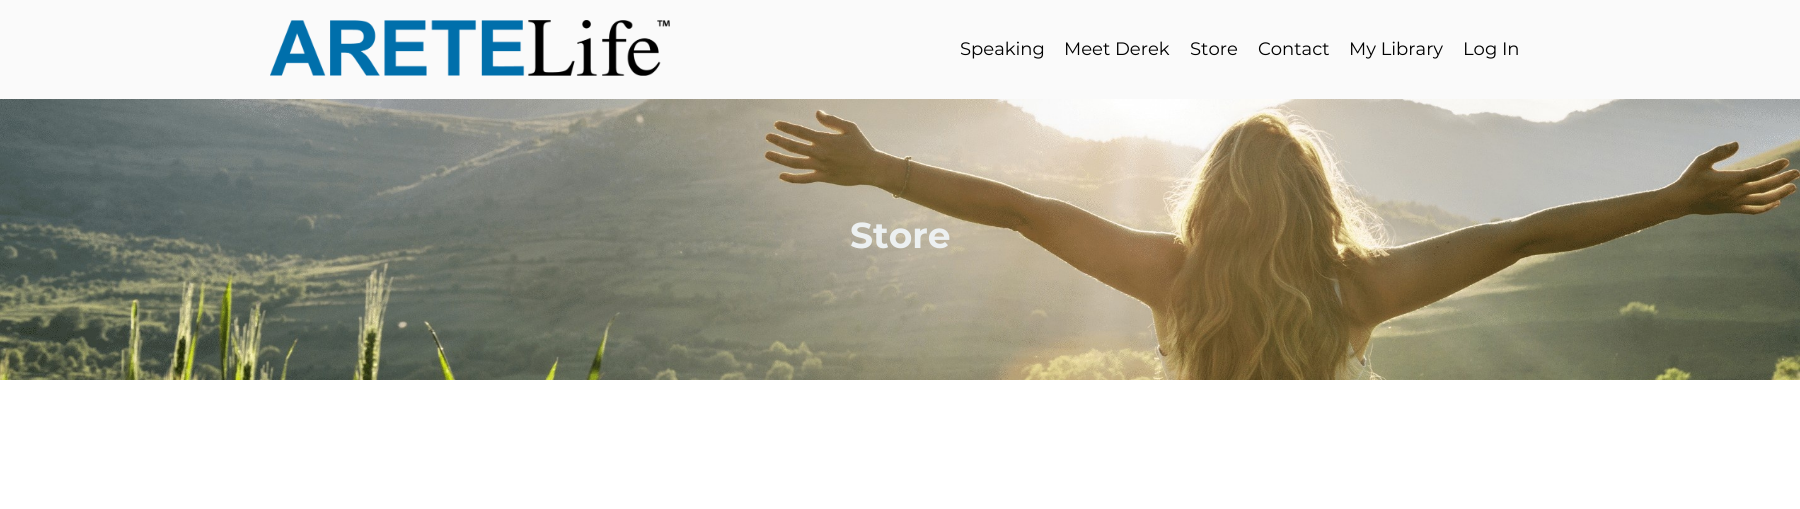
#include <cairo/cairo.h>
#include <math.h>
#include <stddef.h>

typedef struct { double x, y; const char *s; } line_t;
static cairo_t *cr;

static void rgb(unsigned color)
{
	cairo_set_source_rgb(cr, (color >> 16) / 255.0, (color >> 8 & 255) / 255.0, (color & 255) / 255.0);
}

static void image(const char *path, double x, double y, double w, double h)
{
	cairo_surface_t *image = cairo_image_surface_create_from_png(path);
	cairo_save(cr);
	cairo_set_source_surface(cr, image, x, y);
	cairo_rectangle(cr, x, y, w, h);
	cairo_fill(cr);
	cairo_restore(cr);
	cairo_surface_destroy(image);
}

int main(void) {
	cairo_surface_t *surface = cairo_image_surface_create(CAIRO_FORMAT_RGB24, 1800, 509);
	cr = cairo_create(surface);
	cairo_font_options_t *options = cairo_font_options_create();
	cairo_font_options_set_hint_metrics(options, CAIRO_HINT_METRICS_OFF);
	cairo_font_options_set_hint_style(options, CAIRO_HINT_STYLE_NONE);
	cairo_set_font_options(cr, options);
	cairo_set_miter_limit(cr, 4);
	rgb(0xffffff);
	cairo_paint(cr);
	rgb(0xfafafa);
	cairo_rectangle(cr, 0, 0, 1800, 99);
	cairo_fill(cr);
	image("img/1.png", 270, 20, 400, 56);
	image("img/2.png", 0, 99, 1800, 281);
	cairo_select_font_face(cr, "Montserrat", CAIRO_FONT_SLANT_NORMAL, CAIRO_FONT_WEIGHT_NORMAL);
	cairo_set_font_size(cr, 18);
	rgb(0x000000);
	{
		static const line_t items[] = {
			{960, 55, "Speaking"},
			{1064, 55, "Meet Derek"},
			{1190, 55, "Store"},
			{1258, 55, "Contact"},
			{1349, 55, "My Library"},
			{1463, 55, "Log In"},
		};
		for (size_t i = 0; i < sizeof items / sizeof *items; i++) {
			cairo_move_to(cr, items[i].x, items[i].y);
			cairo_show_text(cr, items[i].s);
		}
	}
	cairo_select_font_face(cr, "Montserrat", CAIRO_FONT_SLANT_NORMAL, CAIRO_FONT_WEIGHT_BOLD);
	cairo_set_font_size(cr, 36);
	rgb(0xecf0f1);
	cairo_move_to(cr, 850, 248);
	cairo_show_text(cr, "Store");
	cairo_surface_write_to_png(surface, "page.png");
	cairo_font_options_destroy(options);
	cairo_destroy(cr);
	cairo_surface_destroy(surface);
	return 0;
}
